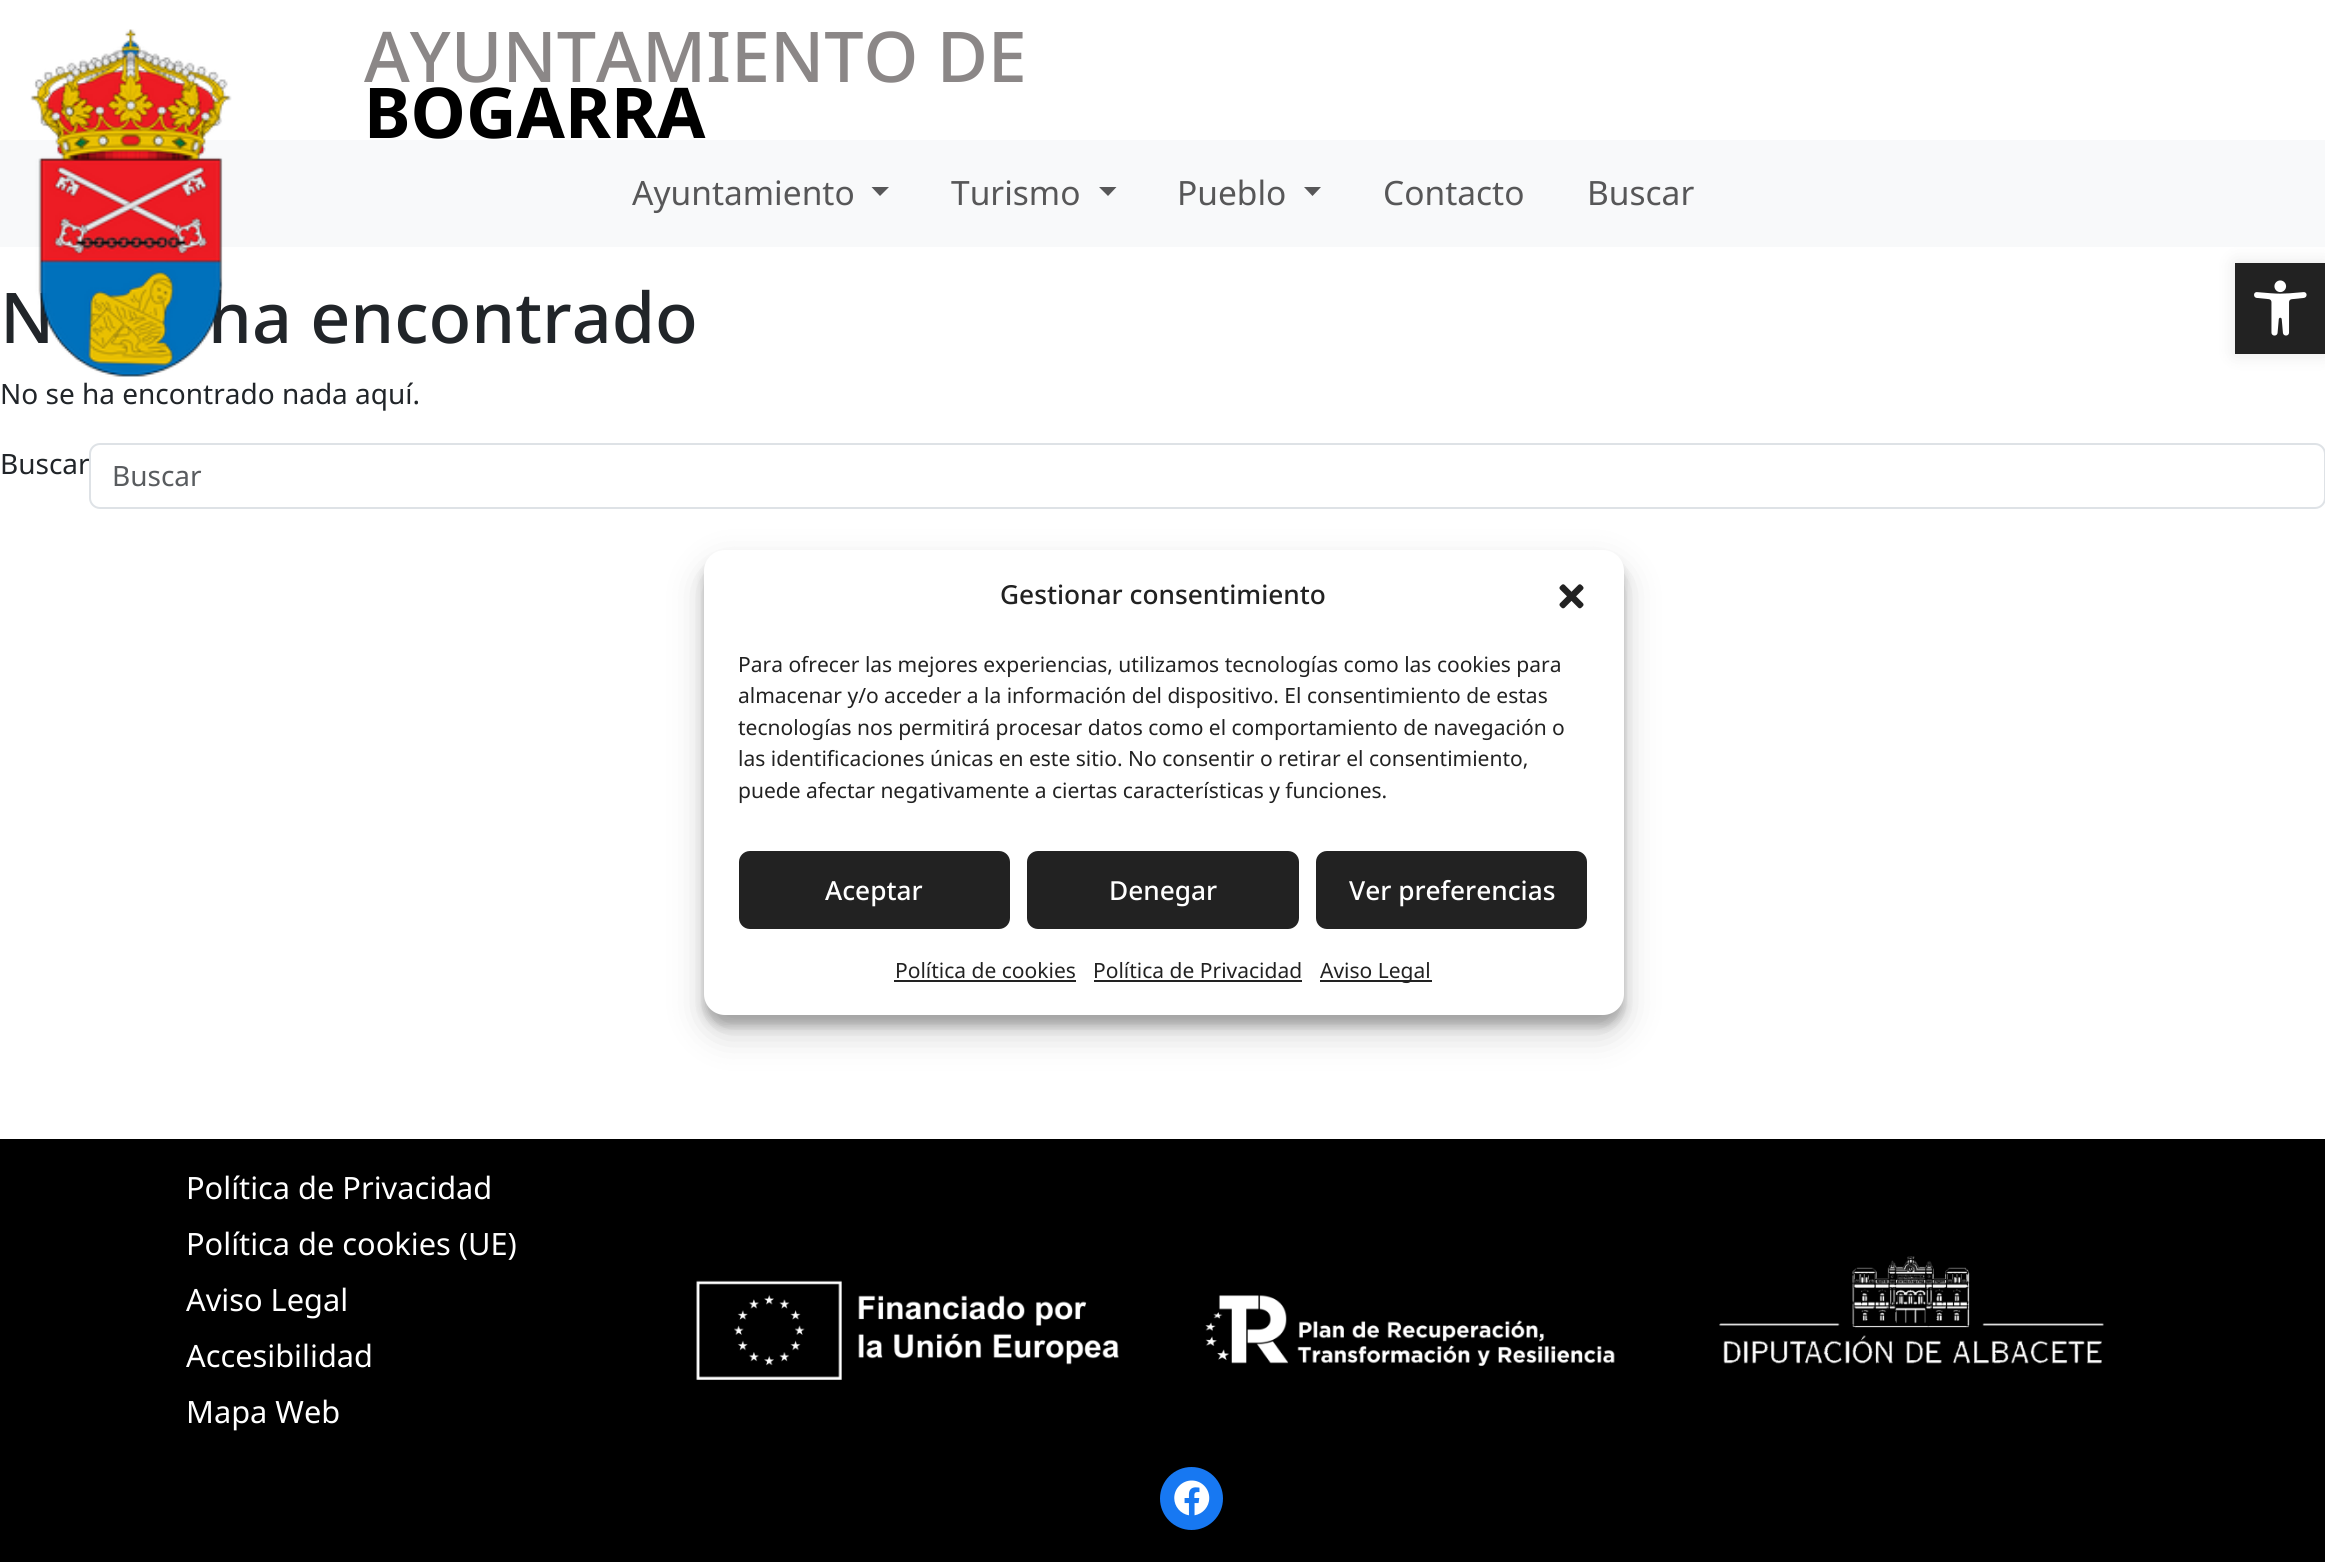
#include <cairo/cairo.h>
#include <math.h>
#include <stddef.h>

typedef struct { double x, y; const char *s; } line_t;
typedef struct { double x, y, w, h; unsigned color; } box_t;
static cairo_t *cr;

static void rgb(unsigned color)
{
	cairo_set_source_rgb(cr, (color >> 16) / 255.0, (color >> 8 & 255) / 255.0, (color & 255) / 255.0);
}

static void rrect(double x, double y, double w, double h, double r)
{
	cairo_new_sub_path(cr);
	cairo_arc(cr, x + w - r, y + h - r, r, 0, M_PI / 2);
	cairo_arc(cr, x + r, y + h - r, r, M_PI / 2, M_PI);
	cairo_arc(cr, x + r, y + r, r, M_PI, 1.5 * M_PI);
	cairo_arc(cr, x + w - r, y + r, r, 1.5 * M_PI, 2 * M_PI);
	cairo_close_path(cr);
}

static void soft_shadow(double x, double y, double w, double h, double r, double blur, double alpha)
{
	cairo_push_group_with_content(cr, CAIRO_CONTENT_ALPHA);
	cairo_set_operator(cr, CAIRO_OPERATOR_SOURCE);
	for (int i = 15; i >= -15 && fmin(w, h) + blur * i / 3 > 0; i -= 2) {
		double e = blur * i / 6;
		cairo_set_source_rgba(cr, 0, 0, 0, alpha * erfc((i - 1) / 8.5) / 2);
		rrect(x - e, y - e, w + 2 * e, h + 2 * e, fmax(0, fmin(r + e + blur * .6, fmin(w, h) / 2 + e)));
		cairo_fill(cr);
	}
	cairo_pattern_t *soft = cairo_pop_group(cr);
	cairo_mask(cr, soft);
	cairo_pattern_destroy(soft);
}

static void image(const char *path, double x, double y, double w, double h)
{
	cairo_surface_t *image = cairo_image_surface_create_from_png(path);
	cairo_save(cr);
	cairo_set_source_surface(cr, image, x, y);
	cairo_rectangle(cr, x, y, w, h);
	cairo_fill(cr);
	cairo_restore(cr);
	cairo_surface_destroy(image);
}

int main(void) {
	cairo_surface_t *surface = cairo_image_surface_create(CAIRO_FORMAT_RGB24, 2325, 1562);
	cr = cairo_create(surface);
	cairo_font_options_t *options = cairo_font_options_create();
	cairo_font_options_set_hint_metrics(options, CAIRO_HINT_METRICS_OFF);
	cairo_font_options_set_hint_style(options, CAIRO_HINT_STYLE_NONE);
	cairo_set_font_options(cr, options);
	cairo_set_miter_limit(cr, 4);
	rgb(0xffffff);
	cairo_paint(cr);
	rgb(0xf8f9fa);
	cairo_rectangle(cr, 0, 140, 2325, 107);
	cairo_fill(cr);
	rgb(0x575758);
	cairo_new_path(cr);
	cairo_move_to(cr, 871.5, 187);
	cairo_line_to(cr, 889, 187);
	cairo_line_to(cr, 880, 196);
	cairo_close_path(cr);
	cairo_fill(cr);
	cairo_new_path(cr);
	cairo_move_to(cr, 1099, 187);
	cairo_line_to(cr, 1116.5, 187);
	cairo_line_to(cr, 1108, 196);
	cairo_close_path(cr);
	cairo_fill(cr);
	cairo_new_path(cr);
	cairo_move_to(cr, 1304, 187);
	cairo_line_to(cr, 1321, 187);
	cairo_line_to(cr, 1312.5, 196);
	cairo_close_path(cr);
	cairo_fill(cr);
	rgb(0x000000);
	cairo_rectangle(cr, 0, 1139, 2325, 423);
	cairo_fill(cr);
	image("img/2.png", 696, 1280, 423, 100);
	image("img/3.png", 1205, 1295, 410, 71);
	image("img/4.png", 1719, 1256, 385, 108);
	rgb(0x1778f2);
	cairo_arc(cr, 1191.5, 1498.5, 31.5, 0, 2 * M_PI);
	cairo_fill(cr);
	image("img/5.png", 1174, 1480, 36, 36);
	rgb(0x000000);
	soft_shadow(2235, 263, 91, 91, 0, 9, 0.1);
	rgb(0x222222);
	cairo_rectangle(cr, 2235, 263, 90, 91);
	cairo_fill(cr);
	image("img/6.png", 2254, 280, 53, 56);
	rgb(0x000000);
	soft_shadow(704, 560, 920, 466, 21, 5, 0.23);
	soft_shadow(704, 567, 920, 466, 21, 17.5, 0.19);
	rgb(0xffffff);
	rrect(704, 550, 920, 465, 21);
	cairo_fill(cr);
	image("img/7.png", 1559, 584, 25, 25);
	rgb(0x222222);
	rrect(740, 852, 269, 76, 10);
	cairo_fill_preserve(cr);
	cairo_stroke(cr);
	rrect(1028, 852, 270, 76, 10);
	cairo_fill_preserve(cr);
	cairo_stroke(cr);
	rrect(1317, 852, 269, 76, 10);
	cairo_fill_preserve(cr);
	cairo_stroke(cr);
	{
		static const box_t items[] = {
			{894, 980, 182, 2, 0x222222},
			{1094, 980, 208, 2, 0x222222},
			{1320, 980, 112, 2, 0x222222},
		};
		for (size_t i = 0; i < sizeof items / sizeof *items; i++) {
			rgb(items[i].color);
			cairo_rectangle(cr, items[i].x, items[i].y, items[i].w, items[i].h);
			cairo_fill(cr);
		}
	}
	cairo_select_font_face(cr, "Noto Sans Medium", CAIRO_FONT_SLANT_NORMAL, CAIRO_FONT_WEIGHT_NORMAL);
	cairo_set_font_size(cr, 70);
	rgb(0x8b8787);
	cairo_move_to(cr, 364, 82);
	cairo_show_text(cr, "AYUNTAMIENTO DE");
	cairo_select_font_face(cr, "Noto Sans", CAIRO_FONT_SLANT_NORMAL, CAIRO_FONT_WEIGHT_BOLD);
	rgb(0x000000);
	cairo_move_to(cr, 364, 138);
	cairo_show_text(cr, "BOGARRA");
	cairo_select_font_face(cr, "Noto Sans", CAIRO_FONT_SLANT_NORMAL, CAIRO_FONT_WEIGHT_NORMAL);
	cairo_set_font_size(cr, 33.5);
	rgb(0x575758);
	{
		static const line_t items[] = {
			{632, 205, "Ayuntamiento"},
			{951, 205, "Turismo"},
			{1177, 205, "Pueblo"},
			{1383, 205, "Contacto"},
			{1587, 205, "Buscar"},
		};
		for (size_t i = 0; i < sizeof items / sizeof *items; i++) {
			cairo_move_to(cr, items[i].x, items[i].y);
			cairo_show_text(cr, items[i].s);
		}
	}
	cairo_select_font_face(cr, "Noto Sans Medium", CAIRO_FONT_SLANT_NORMAL, CAIRO_FONT_WEIGHT_NORMAL);
	cairo_set_font_size(cr, 70);
	rgb(0x212529);
	cairo_move_to(cr, 0, 343);
	cairo_show_text(cr, "N");
	cairo_move_to(cr, 208, 343);
	cairo_show_text(cr, "ha encontrado");
	image("img/1.png", 30, 29, 202, 348);
	cairo_select_font_face(cr, "Noto Sans", CAIRO_FONT_SLANT_NORMAL, CAIRO_FONT_WEIGHT_NORMAL);
	cairo_set_font_size(cr, 28);
	cairo_move_to(cr, 0, 404);
	cairo_show_text(cr, "No se ha encontrado nada aquí.");
	cairo_move_to(cr, 0, 474);
	cairo_show_text(cr, "Buscar");
	rrect(90, 444, 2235, 64, 10);
	rgb(0xdee2e6);
	cairo_stroke(cr);
	rgb(0x595c5f);
	cairo_move_to(cr, 112, 486);
	cairo_show_text(cr, "Buscar");
	cairo_set_font_size(cr, 30.75);
	rgb(0xffffff);
	{
		static const line_t items[] = {
			{186, 1199, "Política de Privacidad"},
			{186, 1255, "Política de cookies (UE)"},
			{186, 1311, "Aviso Legal"},
			{186, 1367, "Accesibilidad"},
			{186, 1423, "Mapa Web"},
		};
		for (size_t i = 0; i < sizeof items / sizeof *items; i++) {
			cairo_move_to(cr, items[i].x, items[i].y);
			cairo_show_text(cr, items[i].s);
		}
	}
	cairo_select_font_face(cr, "Noto Sans Medium", CAIRO_FONT_SLANT_NORMAL, CAIRO_FONT_WEIGHT_NORMAL);
	cairo_set_font_size(cr, 26.25);
	rgb(0x222222);
	cairo_move_to(cr, 1000, 604);
	cairo_show_text(cr, "Gestionar consentimiento");
	cairo_select_font_face(cr, "Noto Sans", CAIRO_FONT_SLANT_NORMAL, CAIRO_FONT_WEIGHT_NORMAL);
	cairo_set_font_size(cr, 21);
	cairo_move_to(cr, 738, 672);
	cairo_show_text(cr, "Para ofrecer las mejores experiencias, utilizamos tecnologías como las cookies para");
	cairo_save(cr);
	cairo_rectangle(cr, 739, 649, 850, 167);
	cairo_clip(cr);
	cairo_move_to(cr, 738, 703);
	cairo_show_text(cr, "almacenar y/o acceder a la información del dispositivo. El consentimiento de estas");
	cairo_restore(cr);
	{
		static const line_t items[] = {
			{738, 735, "tecnologías nos permitirá procesar datos como el comportamiento de navegación o"},
			{738, 766, "las identificaciones únicas en este sitio. No consentir o retirar el consentimiento,"},
			{738, 798, "puede afectar negativamente a ciertas características y funciones."},
		};
		for (size_t i = 0; i < sizeof items / sizeof *items; i++) {
			cairo_move_to(cr, items[i].x, items[i].y);
			cairo_show_text(cr, items[i].s);
		}
	}
	cairo_select_font_face(cr, "Noto Sans Medium", CAIRO_FONT_SLANT_NORMAL, CAIRO_FONT_WEIGHT_NORMAL);
	cairo_set_font_size(cr, 26.25);
	rgb(0xffffff);
	{
		static const line_t items[] = {
			{825, 900, "Aceptar"},
			{1109, 900, "Denegar"},
			{1349, 900, "Ver preferencias"},
		};
		for (size_t i = 0; i < sizeof items / sizeof *items; i++) {
			cairo_move_to(cr, items[i].x, items[i].y);
			cairo_show_text(cr, items[i].s);
		}
	}
	cairo_select_font_face(cr, "Noto Sans", CAIRO_FONT_SLANT_NORMAL, CAIRO_FONT_WEIGHT_NORMAL);
	cairo_set_font_size(cr, 21);
	rgb(0x222222);
	{
		static const line_t items[] = {
			{895, 978, "Política de cookies"},
			{1093, 978, "Política de Privacidad"},
			{1320, 978, "Aviso Legal"},
		};
		for (size_t i = 0; i < sizeof items / sizeof *items; i++) {
			cairo_move_to(cr, items[i].x, items[i].y);
			cairo_show_text(cr, items[i].s);
		}
	}
	cairo_surface_write_to_png(surface, "page.png");
	cairo_font_options_destroy(options);
	cairo_destroy(cr);
	cairo_surface_destroy(surface);
	return 0;
}
